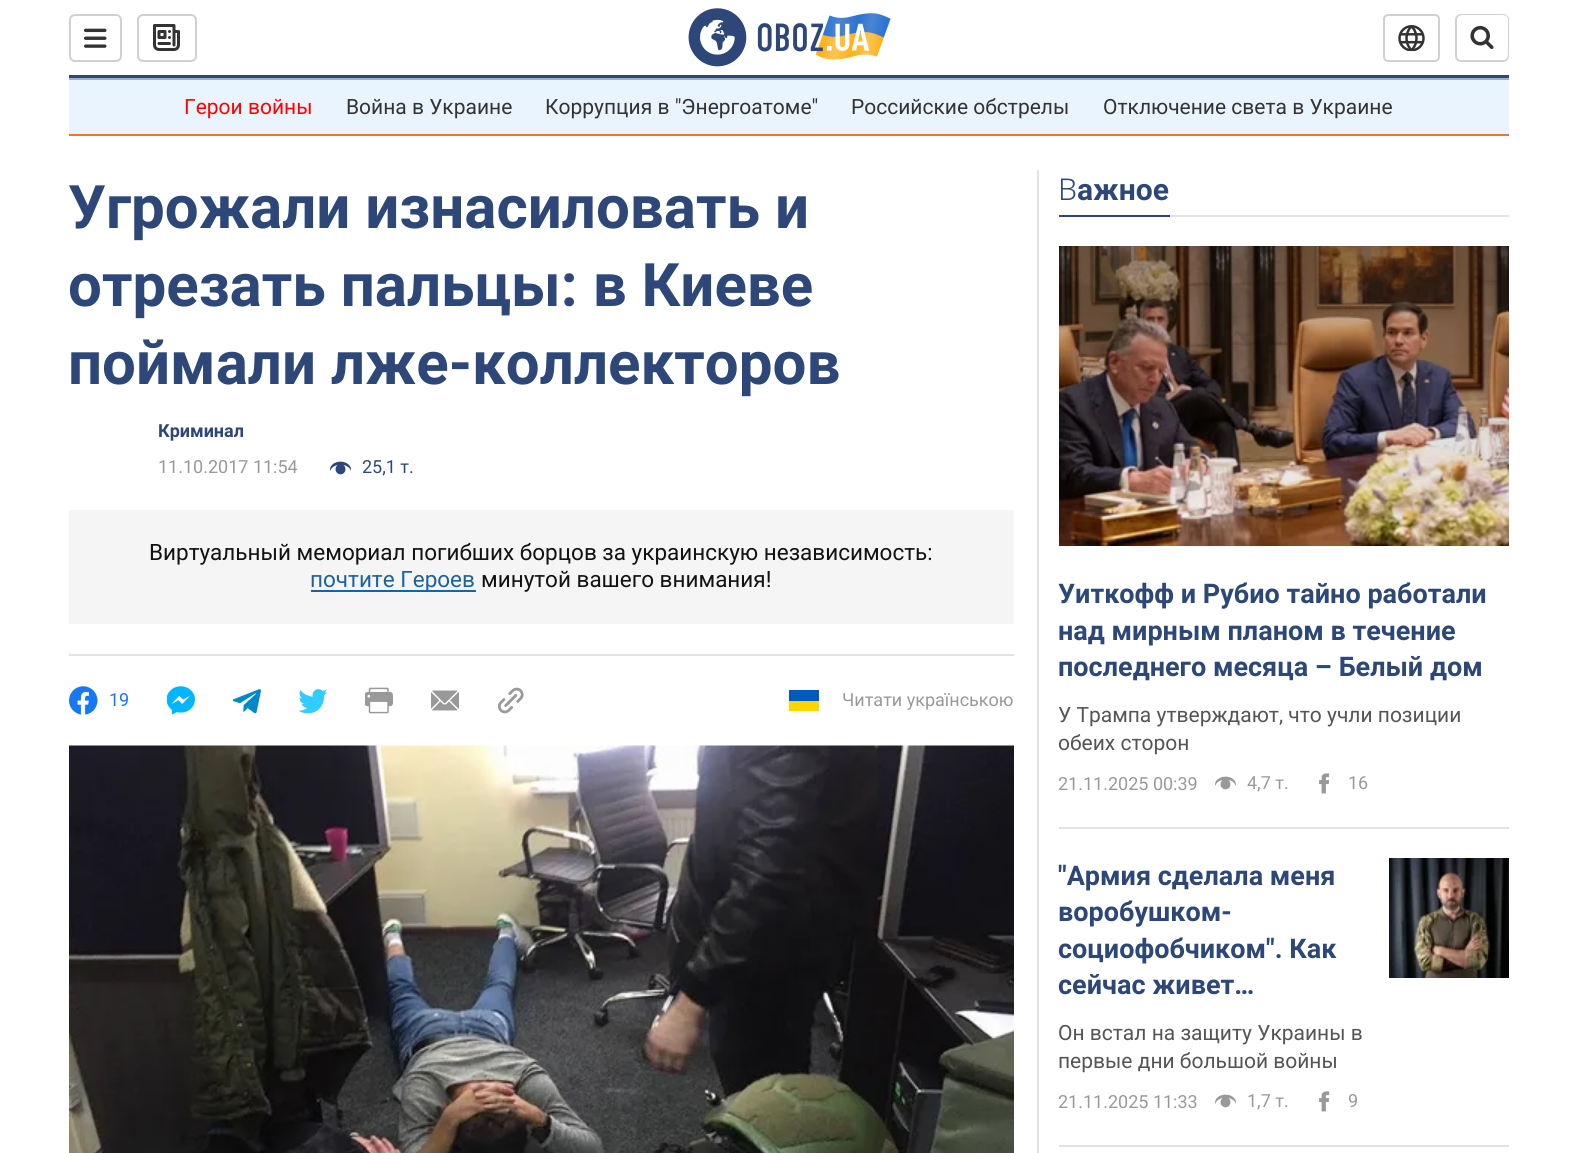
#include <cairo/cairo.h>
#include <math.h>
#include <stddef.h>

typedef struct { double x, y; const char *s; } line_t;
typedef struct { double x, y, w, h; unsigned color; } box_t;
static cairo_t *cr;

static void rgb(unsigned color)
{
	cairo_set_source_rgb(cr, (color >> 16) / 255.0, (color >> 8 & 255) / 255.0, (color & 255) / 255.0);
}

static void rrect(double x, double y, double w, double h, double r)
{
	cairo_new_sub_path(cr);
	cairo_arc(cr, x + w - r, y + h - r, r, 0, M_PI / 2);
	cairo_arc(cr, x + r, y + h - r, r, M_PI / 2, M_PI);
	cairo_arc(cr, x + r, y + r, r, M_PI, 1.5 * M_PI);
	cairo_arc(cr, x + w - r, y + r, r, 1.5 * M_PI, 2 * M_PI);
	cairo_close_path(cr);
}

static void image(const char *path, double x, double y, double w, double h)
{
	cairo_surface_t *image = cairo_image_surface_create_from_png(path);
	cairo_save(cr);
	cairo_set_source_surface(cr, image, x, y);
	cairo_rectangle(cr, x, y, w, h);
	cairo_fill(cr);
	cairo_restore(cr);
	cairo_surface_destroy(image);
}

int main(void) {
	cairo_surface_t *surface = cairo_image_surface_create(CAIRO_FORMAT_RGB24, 1576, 1153);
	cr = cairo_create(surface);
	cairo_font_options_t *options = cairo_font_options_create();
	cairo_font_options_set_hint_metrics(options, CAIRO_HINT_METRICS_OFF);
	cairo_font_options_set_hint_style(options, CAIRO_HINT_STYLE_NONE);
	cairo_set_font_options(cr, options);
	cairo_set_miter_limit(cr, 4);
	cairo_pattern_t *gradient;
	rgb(0xffffff);
	cairo_paint(cr);
	rgb(0x2d4878);
	cairo_rectangle(cr, 69, 75, 1440, 3);
	cairo_fill(cr);
	rrect(70, 15, 51, 46, 5);
	rgb(0xd0d0d0);
	cairo_stroke(cr);
	image("img/1.png", 84, 28, 23, 20);
	rrect(138, 15, 58, 46, 5);
	cairo_stroke(cr);
	image("img/2.png", 153, 24, 27, 27);
	image("img/3.png", 688, 8, 203, 59);
	rrect(1384, 15, 55, 46, 4);
	cairo_stroke(cr);
	image("img/4.png", 1398, 25, 27, 26);
	rrect(1456, 15, 52, 46, 5);
	cairo_stroke(cr);
	rgb(0xffffff);
	rrect(1457, 15, 51, 45, 5);
	cairo_fill(cr);
	image("img/5.png", 1470, 25, 24, 25);
	{
		static const box_t items[] = {
			{69, 80, 1440, 54, 0xeaf4ff},
			{69, 78, 1440, 2, 0x9eafc9},
			{69, 134, 1440, 2, 0xf17132},
			{69, 654, 945, 2, 0xe2e2e2},
		};
		for (size_t i = 0; i < sizeof items / sizeof *items; i++) {
			rgb(items[i].color);
			cairo_rectangle(cr, items[i].x, items[i].y, items[i].w, items[i].h);
			cairo_fill(cr);
		}
	}
	image("img/6.png", 330, 461, 21, 14);
	rgb(0xf5f5f5);
	cairo_rectangle(cr, 69, 510, 945, 114);
	cairo_fill(cr);
	rgb(0x1c629c);
	cairo_rectangle(cr, 311, 590, 165, 2);
	cairo_fill(cr);
	image("img/7.png", 69, 686, 29, 29);
	image("img/8.png", 167, 686, 28, 29);
	image("img/9.png", 233, 689, 28, 25);
	image("img/10.png", 299, 689, 28, 25);
	image("img/11.png", 365, 687, 28, 27);
	image("img/12.png", 431, 690, 28, 21);
	image("img/13.png", 497, 687, 27, 27);
	rgb(0x005bbb);
	cairo_rectangle(cr, 789, 690, 30, 11);
	cairo_fill(cr);
	rgb(0xffd500);
	cairo_rectangle(cr, 789, 701, 30, 10);
	cairo_fill(cr);
	image("img/14.png", 69, 745, 945, 408);
	{
		static const box_t items[] = {
			{1037, 170, 2, 983, 0xe2e2e2},
			{1170, 215, 339, 2, 0xe2e2e2},
			{1059, 215, 111, 2, 0x2d4878},
			{1059, 827, 450, 2, 0xe2e2e2},
		};
		for (size_t i = 0; i < sizeof items / sizeof *items; i++) {
			rgb(items[i].color);
			cairo_rectangle(cr, items[i].x, items[i].y, items[i].w, items[i].h);
			cairo_fill(cr);
		}
	}
	image("img/15.png", 1059, 246, 450, 300);
	gradient = cairo_pattern_create_linear(1284, 246, 1284, 554);
	cairo_pattern_add_color_stop_rgba(gradient, 0, 0, 0, 0, 0.3);
	cairo_pattern_add_color_stop_rgba(gradient, 1, 0, 0, 0, 0);
	cairo_set_source(cr, gradient);
	cairo_pattern_destroy(gradient);
	cairo_rectangle(cr, 1059, 246, 450, 286);
	cairo_fill(cr);
	image("img/16.png", 1215, 776, 21, 14);
	image("img/17.png", 1319, 773, 11, 21);
	rgb(0xe2e2e2);
	cairo_rectangle(cr, 1059, 1145, 450, 2);
	cairo_fill(cr);
	image("img/16.png", 1215, 1094, 21, 14);
	image("img/17.png", 1319, 1091, 11, 21);
	image("img/18.png", 1389, 858, 120, 120);
	cairo_select_font_face(cr, "Roboto", CAIRO_FONT_SLANT_NORMAL, CAIRO_FONT_WEIGHT_NORMAL);
	cairo_set_font_size(cr, 21);
	rgb(0xff0000);
	cairo_move_to(cr, 184, 114);
	cairo_show_text(cr, "Герои войны");
	rgb(0x333333);
	{
		static const line_t items[] = {
			{346, 114, "Война в Украине"},
			{545, 114, "Коррупция в \"Энергоатоме\""},
			{851, 114, "Российские обстрелы"},
			{1103, 114, "Отключение света в Украине"},
		};
		for (size_t i = 0; i < sizeof items / sizeof *items; i++) {
			cairo_move_to(cr, items[i].x, items[i].y);
			cairo_show_text(cr, items[i].s);
		}
	}
	cairo_select_font_face(cr, "Roboto", CAIRO_FONT_SLANT_NORMAL, CAIRO_FONT_WEIGHT_BOLD);
	cairo_set_font_size(cr, 60);
	rgb(0x2d4878);
	{
		static const line_t items[] = {
			{68, 228, "Угрожали изнасиловать и"},
			{68, 306, "отрезать пальцы: в Киеве"},
			{68, 384, "поймали лже-коллекторов"},
		};
		for (size_t i = 0; i < sizeof items / sizeof *items; i++) {
			cairo_move_to(cr, items[i].x, items[i].y);
			cairo_show_text(cr, items[i].s);
		}
	}
	cairo_set_font_size(cr, 18);
	cairo_move_to(cr, 158, 437);
	cairo_show_text(cr, "Криминал");
	cairo_select_font_face(cr, "Roboto", CAIRO_FONT_SLANT_NORMAL, CAIRO_FONT_WEIGHT_NORMAL);
	rgb(0x999999);
	cairo_move_to(cr, 158, 473);
	cairo_show_text(cr, "11.10.2017 11:54");
	rgb(0x2d4878);
	cairo_move_to(cr, 362, 473);
	cairo_show_text(cr, "25,1 т.");
	cairo_set_font_size(cr, 22.5);
	rgb(0x121212);
	cairo_move_to(cr, 149, 560);
	cairo_show_text(cr, "Виртуальный мемориал погибших борцов за украинскую независимость:");
	rgb(0x1c629c);
	cairo_move_to(cr, 310, 587);
	cairo_show_text(cr, "почтите Героев");
	rgb(0x121212);
	cairo_move_to(cr, 481, 587);
	cairo_show_text(cr, "минутой вашего внимания!");
	cairo_set_font_size(cr, 18);
	rgb(0x1778f2);
	cairo_move_to(cr, 109, 706);
	cairo_show_text(cr, "19");
	rgb(0x999999);
	cairo_move_to(cr, 842, 706);
	cairo_show_text(cr, "Читати українською");
	cairo_select_font_face(cr, "Noto Sans Light", CAIRO_FONT_SLANT_NORMAL, CAIRO_FONT_WEIGHT_NORMAL);
	cairo_set_font_size(cr, 30);
	rgb(0x2d4878);
	cairo_move_to(cr, 1058, 200);
	cairo_show_text(cr, "В");
	cairo_select_font_face(cr, "Roboto", CAIRO_FONT_SLANT_NORMAL, CAIRO_FONT_WEIGHT_BOLD);
	cairo_move_to(cr, 1077, 200);
	cairo_show_text(cr, "ажное");
	cairo_set_font_size(cr, 27);
	{
		static const line_t items[] = {
			{1058, 603, "Уиткофф и Рубио тайно работали"},
			{1058, 640, "над мирным планом в течение"},
			{1058, 676, "последнего месяца – Белый дом"},
		};
		for (size_t i = 0; i < sizeof items / sizeof *items; i++) {
			cairo_move_to(cr, items[i].x, items[i].y);
			cairo_show_text(cr, items[i].s);
		}
	}
	cairo_select_font_face(cr, "Roboto", CAIRO_FONT_SLANT_NORMAL, CAIRO_FONT_WEIGHT_NORMAL);
	cairo_set_font_size(cr, 21);
	rgb(0x555555);
	cairo_move_to(cr, 1058, 722);
	cairo_show_text(cr, "У Трампа утверждают, что учли позиции");
	cairo_move_to(cr, 1058, 750);
	cairo_show_text(cr, "обеих сторон");
	cairo_set_font_size(cr, 18);
	rgb(0x999999);
	{
		static const line_t items[] = {
			{1058, 790, "21.11.2025 00:39"},
			{1247, 789, "4,7 т."},
			{1348, 789, "16"},
		};
		for (size_t i = 0; i < sizeof items / sizeof *items; i++) {
			cairo_move_to(cr, items[i].x, items[i].y);
			cairo_show_text(cr, items[i].s);
		}
	}
	cairo_select_font_face(cr, "Roboto", CAIRO_FONT_SLANT_NORMAL, CAIRO_FONT_WEIGHT_BOLD);
	cairo_set_font_size(cr, 27);
	rgb(0x2d4878);
	{
		static const line_t items[] = {
			{1058, 885, "\"Армия сделала меня"},
			{1058, 921, "воробушком-"},
			{1058, 958, "социофобчиком\". Как"},
			{1058, 994, "сейчас живет…"},
		};
		for (size_t i = 0; i < sizeof items / sizeof *items; i++) {
			cairo_move_to(cr, items[i].x, items[i].y);
			cairo_show_text(cr, items[i].s);
		}
	}
	cairo_select_font_face(cr, "Roboto", CAIRO_FONT_SLANT_NORMAL, CAIRO_FONT_WEIGHT_NORMAL);
	cairo_set_font_size(cr, 21);
	rgb(0x555555);
	cairo_move_to(cr, 1058, 1040);
	cairo_show_text(cr, "Он встал на защиту Украины в");
	cairo_move_to(cr, 1058, 1068);
	cairo_show_text(cr, "первые дни большой войны");
	cairo_set_font_size(cr, 18);
	rgb(0x999999);
	{
		static const line_t items[] = {
			{1058, 1108, "21.11.2025 11:33"},
			{1247, 1107, "1,7 т."},
			{1348, 1107, "9"},
		};
		for (size_t i = 0; i < sizeof items / sizeof *items; i++) {
			cairo_move_to(cr, items[i].x, items[i].y);
			cairo_show_text(cr, items[i].s);
		}
	}
	cairo_surface_write_to_png(surface, "page.png");
	cairo_font_options_destroy(options);
	cairo_destroy(cr);
	cairo_surface_destroy(surface);
	return 0;
}
